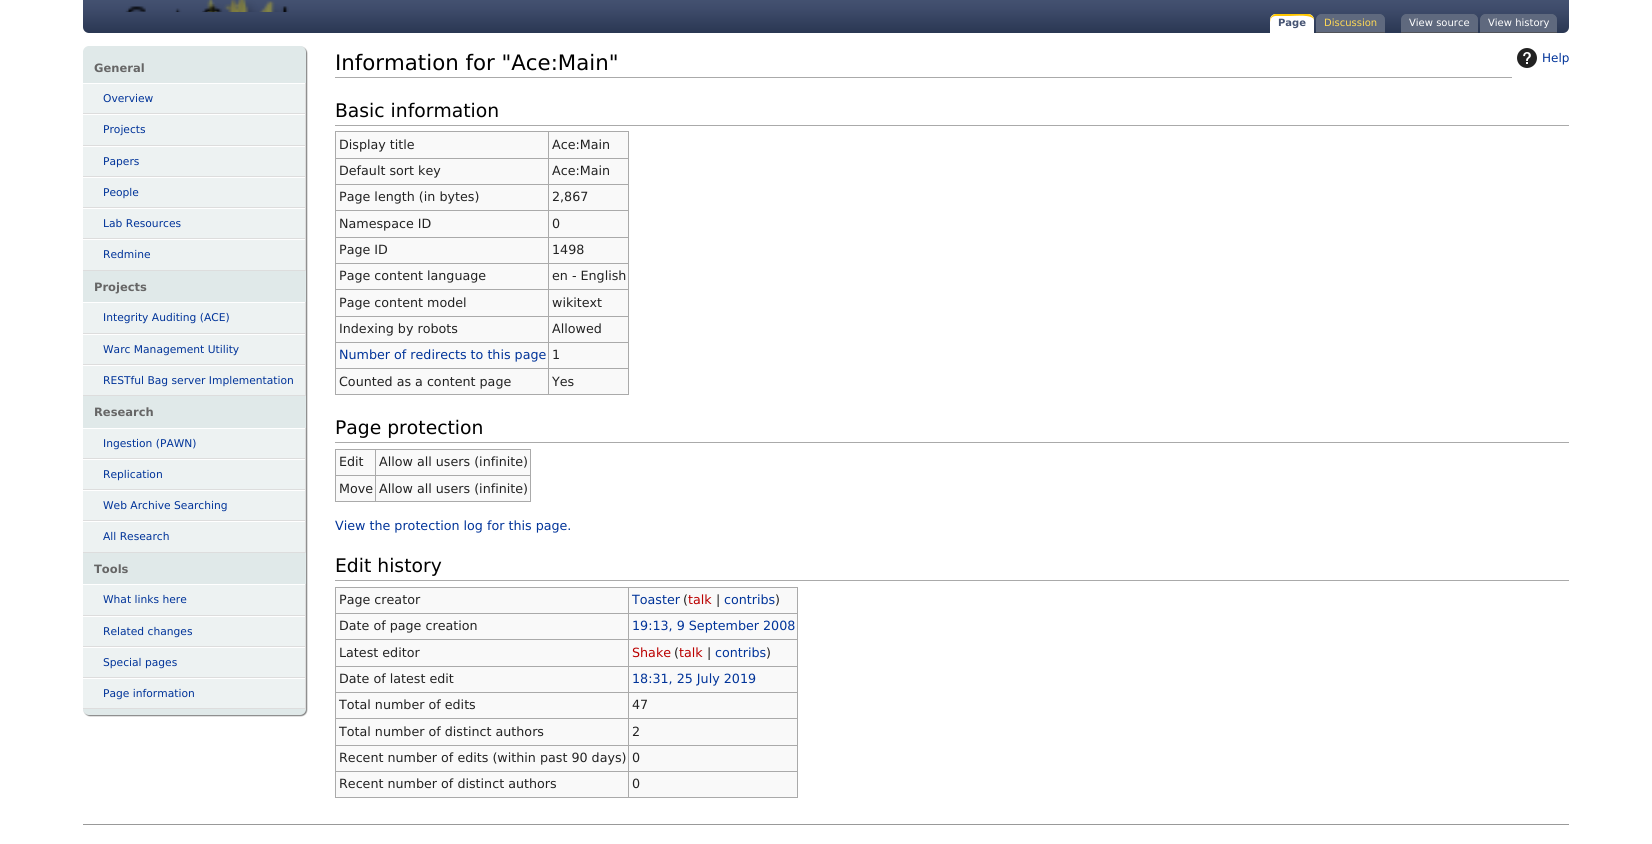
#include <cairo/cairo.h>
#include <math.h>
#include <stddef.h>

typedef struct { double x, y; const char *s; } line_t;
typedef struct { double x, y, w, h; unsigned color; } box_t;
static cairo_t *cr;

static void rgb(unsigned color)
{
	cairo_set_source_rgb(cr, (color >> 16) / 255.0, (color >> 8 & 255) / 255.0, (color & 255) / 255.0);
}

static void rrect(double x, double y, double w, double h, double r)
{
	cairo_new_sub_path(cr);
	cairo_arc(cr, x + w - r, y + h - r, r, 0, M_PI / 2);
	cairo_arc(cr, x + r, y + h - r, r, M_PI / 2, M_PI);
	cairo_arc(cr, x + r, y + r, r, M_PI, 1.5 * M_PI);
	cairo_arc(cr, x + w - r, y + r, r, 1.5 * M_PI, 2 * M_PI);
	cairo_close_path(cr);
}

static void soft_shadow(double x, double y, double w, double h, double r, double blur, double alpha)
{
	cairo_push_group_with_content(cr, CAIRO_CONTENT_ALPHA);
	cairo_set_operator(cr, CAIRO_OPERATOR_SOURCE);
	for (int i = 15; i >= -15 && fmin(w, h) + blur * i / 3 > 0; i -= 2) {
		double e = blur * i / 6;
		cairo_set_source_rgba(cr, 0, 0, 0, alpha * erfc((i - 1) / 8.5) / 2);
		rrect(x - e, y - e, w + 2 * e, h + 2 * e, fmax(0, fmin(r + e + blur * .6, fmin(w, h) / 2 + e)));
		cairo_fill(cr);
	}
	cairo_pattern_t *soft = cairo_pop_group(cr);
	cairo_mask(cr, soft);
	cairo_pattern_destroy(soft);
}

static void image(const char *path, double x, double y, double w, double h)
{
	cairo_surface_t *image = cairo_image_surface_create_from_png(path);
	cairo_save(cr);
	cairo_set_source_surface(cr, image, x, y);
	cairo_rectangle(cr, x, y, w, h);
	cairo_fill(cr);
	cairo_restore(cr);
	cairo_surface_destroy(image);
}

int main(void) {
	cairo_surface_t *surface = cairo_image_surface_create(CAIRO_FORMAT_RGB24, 1652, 844);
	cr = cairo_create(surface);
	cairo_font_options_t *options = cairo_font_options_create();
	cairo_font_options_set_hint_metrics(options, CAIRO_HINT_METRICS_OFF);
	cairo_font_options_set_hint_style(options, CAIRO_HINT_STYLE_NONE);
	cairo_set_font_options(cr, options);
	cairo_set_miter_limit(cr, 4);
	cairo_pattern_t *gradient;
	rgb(0xffffff);
	cairo_paint(cr);
	gradient = cairo_pattern_create_linear(826, -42, 826, 33);
	cairo_pattern_add_color_stop_rgba(gradient, 0, 0.271, 0.325, 0.447, 1);
	cairo_pattern_add_color_stop_rgba(gradient, 0.52, 0.271, 0.325, 0.447, 1);
	cairo_pattern_add_color_stop_rgba(gradient, 0.67, 0.247, 0.298, 0.42, 1);
	cairo_pattern_add_color_stop_rgba(gradient, 1, 0.165, 0.216, 0.325, 1);
	cairo_set_source(cr, gradient);
	cairo_pattern_destroy(gradient);
	rrect(83, -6, 1486, 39, 6);
	cairo_fill(cr);
	image("img/1.png", 125, 0, 164, 12);
	rgb(0xffffff);
	cairo_new_path(cr);
	cairo_move_to(cr, 1276, 14);
	cairo_line_to(cr, 1308, 14);
	cairo_curve_to(cr, 1311.5, 14, 1314, 16.5, 1314, 20);
	cairo_line_to(cr, 1314, 33);
	cairo_line_to(cr, 1270, 33);
	cairo_line_to(cr, 1270, 20);
	cairo_curve_to(cr, 1270, 16.5, 1272.5, 14, 1276, 14);
	cairo_close_path(cr);
	cairo_fill(cr);
	rgb(0xffc600);
	cairo_set_fill_rule(cr, CAIRO_FILL_RULE_EVEN_ODD);
	cairo_new_path(cr);
	cairo_move_to(cr, 1276, 14);
	cairo_curve_to(cr, 1272, 14, 1270, 18, 1270, 22);
	cairo_curve_to(cr, 1271, 15, 1275, 16, 1280, 16);
	cairo_line_to(cr, 1290, 16);
	cairo_curve_to(cr, 1294, 16, 1313, 14, 1314, 20);
	cairo_curve_to(cr, 1314, 17, 1311, 14, 1308, 14);
	cairo_close_path(cr);
	cairo_move_to(cr, 1314, 20);
	cairo_line_to(cr, 1314, 20);
	cairo_close_path(cr);
	cairo_fill(cr);
	rgb(0x5f697e);
	cairo_new_path(cr);
	cairo_move_to(cr, 1322, 14);
	cairo_line_to(cr, 1379, 14);
	cairo_curve_to(cr, 1382.5, 14, 1385, 16.5, 1385, 20);
	cairo_line_to(cr, 1385, 33);
	cairo_line_to(cr, 1316, 33);
	cairo_line_to(cr, 1316, 20);
	cairo_curve_to(cr, 1316, 16.5, 1318.5, 14, 1322, 14);
	cairo_close_path(cr);
	cairo_fill(cr);
	cairo_set_fill_rule(cr, CAIRO_FILL_RULE_WINDING);
	cairo_new_path(cr);
	cairo_move_to(cr, 1322, 14);
	cairo_curve_to(cr, 1318, 14, 1316, 18, 1316, 22);
	cairo_line_to(cr, 1317, 18);
	cairo_curve_to(cr, 1318, 17, 1320, 16, 1322, 16);
	cairo_line_to(cr, 1379, 16);
	cairo_curve_to(cr, 1382, 16, 1385, 18, 1385, 20);
	cairo_curve_to(cr, 1385, 17, 1382, 14, 1379, 14);
	cairo_close_path(cr);
	cairo_fill(cr);
	rgb(0x515358);
	cairo_rectangle(cr, 1316, 32, 69, 1);
	cairo_fill(cr);
	rgb(0x5f697e);
	cairo_new_path(cr);
	cairo_move_to(cr, 1407, 14);
	cairo_line_to(cr, 1472, 14);
	cairo_curve_to(cr, 1475.5, 14, 1478, 16.5, 1478, 20);
	cairo_line_to(cr, 1478, 33);
	cairo_line_to(cr, 1401, 33);
	cairo_line_to(cr, 1401, 20);
	cairo_curve_to(cr, 1401, 16.5, 1403.5, 14, 1407, 14);
	cairo_close_path(cr);
	cairo_fill(cr);
	cairo_new_path(cr);
	cairo_move_to(cr, 1407, 14);
	cairo_curve_to(cr, 1403, 14, 1401, 18, 1401, 22);
	cairo_line_to(cr, 1402, 18);
	cairo_curve_to(cr, 1404, 14, 1416, 16, 1418, 16);
	cairo_line_to(cr, 1473, 16);
	cairo_curve_to(cr, 1475, 16, 1478, 18, 1478, 20);
	cairo_curve_to(cr, 1478, 17, 1475, 14, 1472, 14);
	cairo_close_path(cr);
	cairo_fill(cr);
	rgb(0x515358);
	cairo_rectangle(cr, 1401, 32, 77, 1);
	cairo_fill(cr);
	rgb(0x5f697e);
	cairo_new_path(cr);
	cairo_move_to(cr, 1486, 14);
	cairo_line_to(cr, 1551, 14);
	cairo_curve_to(cr, 1554.5, 14, 1557, 16.5, 1557, 20);
	cairo_line_to(cr, 1557, 33);
	cairo_line_to(cr, 1480, 33);
	cairo_line_to(cr, 1480, 20);
	cairo_curve_to(cr, 1480, 16.5, 1482.5, 14, 1486, 14);
	cairo_close_path(cr);
	cairo_fill(cr);
	cairo_new_path(cr);
	cairo_move_to(cr, 1486, 14);
	cairo_curve_to(cr, 1482, 14, 1480, 18, 1480, 22);
	cairo_line_to(cr, 1481, 18);
	cairo_curve_to(cr, 1483, 14, 1495, 16, 1497, 16);
	cairo_line_to(cr, 1552, 16);
	cairo_curve_to(cr, 1554, 16, 1557, 18, 1557, 20);
	cairo_curve_to(cr, 1557, 17, 1554, 14, 1551, 14);
	cairo_close_path(cr);
	cairo_fill(cr);
	rgb(0x515358);
	cairo_rectangle(cr, 1480, 32, 77, 1);
	cairo_fill(cr);
	rgb(0x808080);
	soft_shadow(84, 47, 223, 669, 6, 0.5, 1);
	rgb(0xe0e9e9);
	rrect(83, 46, 223, 669, 6);
	cairo_fill(cr);
	{
		static const box_t items[] = {
			{83, 84, 222, 29, 0xedf2f2},
			{83, 83, 223, 1, 0xffffff},
			{305, 83, 1, 31, 0xdddddd},
			{83, 113, 223, 1, 0xdddddd},
			{83, 115, 222, 30, 0xedf2f2},
			{83, 114, 223, 1, 0xffffff},
			{305, 114, 1, 32, 0xdddddd},
			{83, 145, 223, 1, 0xdddddd},
			{83, 147, 222, 29, 0xedf2f2},
			{83, 146, 223, 1, 0xffffff},
			{305, 146, 1, 31, 0xdddddd},
			{83, 176, 223, 1, 0xdddddd},
			{83, 178, 222, 29, 0xedf2f2},
			{83, 177, 223, 1, 0xffffff},
			{305, 177, 1, 31, 0xdddddd},
			{83, 207, 223, 1, 0xdddddd},
			{83, 209, 222, 29, 0xedf2f2},
			{83, 208, 223, 1, 0xffffff},
			{305, 208, 1, 31, 0xdddddd},
			{83, 238, 223, 1, 0xdddddd},
			{83, 240, 222, 30, 0xedf2f2},
			{83, 239, 223, 1, 0xffffff},
			{305, 239, 1, 32, 0xdddddd},
			{83, 270, 223, 1, 0xdddddd},
			{83, 303, 222, 30, 0xedf2f2},
			{83, 302, 223, 1, 0xffffff},
			{305, 302, 1, 32, 0xdddddd},
			{83, 333, 223, 1, 0xdddddd},
			{83, 335, 222, 29, 0xedf2f2},
			{83, 334, 223, 1, 0xffffff},
			{305, 334, 1, 31, 0xdddddd},
			{83, 364, 223, 1, 0xdddddd},
			{83, 366, 222, 29, 0xedf2f2},
			{83, 365, 223, 1, 0xffffff},
			{305, 365, 1, 31, 0xdddddd},
			{83, 395, 223, 1, 0xdddddd},
			{83, 429, 222, 29, 0xedf2f2},
			{83, 428, 223, 1, 0xffffff},
			{305, 428, 1, 31, 0xdddddd},
			{83, 458, 223, 1, 0xdddddd},
			{83, 460, 222, 29, 0xedf2f2},
			{83, 459, 223, 1, 0xffffff},
			{305, 459, 1, 31, 0xdddddd},
			{83, 489, 223, 1, 0xdddddd},
			{83, 491, 222, 29, 0xedf2f2},
			{83, 490, 223, 1, 0xffffff},
			{305, 490, 1, 31, 0xdddddd},
			{83, 520, 223, 1, 0xdddddd},
			{83, 522, 222, 30, 0xedf2f2},
			{83, 521, 223, 1, 0xffffff},
			{305, 521, 1, 32, 0xdddddd},
			{83, 552, 223, 1, 0xdddddd},
			{83, 585, 222, 30, 0xedf2f2},
			{83, 584, 223, 1, 0xffffff},
			{305, 584, 1, 32, 0xdddddd},
			{83, 615, 223, 1, 0xdddddd},
			{83, 617, 222, 29, 0xedf2f2},
			{83, 616, 223, 1, 0xffffff},
			{305, 616, 1, 31, 0xdddddd},
			{83, 646, 223, 1, 0xdddddd},
			{83, 648, 222, 29, 0xedf2f2},
			{83, 647, 223, 1, 0xffffff},
			{305, 647, 1, 31, 0xdddddd},
			{83, 677, 223, 1, 0xdddddd},
			{83, 679, 222, 29, 0xedf2f2},
			{83, 678, 223, 1, 0xffffff},
			{305, 678, 1, 31, 0xdddddd},
			{83, 708, 223, 1, 0xdddddd},
			{335, 77, 1177, 1, 0xaaaaaa},
		};
		for (size_t i = 0; i < sizeof items / sizeof *items; i++) {
			rgb(items[i].color);
			cairo_rectangle(cr, items[i].x, items[i].y, items[i].w, items[i].h);
			cairo_fill(cr);
		}
	}
	image("img/2.png", 1517, 48, 20, 20);
	cairo_rectangle(cr, 335, 125, 1234, 1);
	cairo_fill(cr);
	rgb(0xf9f9f9);
	rrect(335, 131, 294, 264, 6);
	cairo_fill(cr);
	{
		static const box_t items[] = {
			{335, 131, 294, 1, 0xaaaaaa},
			{628, 131, 1, 264, 0xaaaaaa},
			{335, 394, 294, 1, 0xaaaaaa},
			{335, 131, 1, 264, 0xaaaaaa},
			{548, 158, 81, 1, 0xaaaaaa},
			{548, 184, 81, 1, 0xaaaaaa},
			{548, 210, 81, 1, 0xaaaaaa},
			{548, 237, 81, 1, 0xaaaaaa},
			{548, 263, 81, 1, 0xaaaaaa},
			{548, 289, 81, 1, 0xaaaaaa},
			{548, 316, 81, 1, 0xaaaaaa},
			{548, 342, 81, 1, 0xaaaaaa},
			{548, 368, 81, 1, 0xaaaaaa},
			{548, 368, 1, 27, 0xaaaaaa},
			{335, 368, 214, 1, 0xaaaaaa},
			{548, 342, 1, 27, 0xaaaaaa},
			{335, 342, 214, 1, 0xaaaaaa},
			{548, 316, 1, 27, 0xaaaaaa},
			{335, 316, 214, 1, 0xaaaaaa},
			{548, 289, 1, 28, 0xaaaaaa},
			{335, 289, 214, 1, 0xaaaaaa},
			{548, 263, 1, 27, 0xaaaaaa},
			{335, 263, 214, 1, 0xaaaaaa},
			{548, 237, 1, 27, 0xaaaaaa},
			{335, 237, 214, 1, 0xaaaaaa},
			{548, 210, 1, 28, 0xaaaaaa},
			{335, 210, 214, 1, 0xaaaaaa},
			{548, 184, 1, 27, 0xaaaaaa},
			{335, 184, 214, 1, 0xaaaaaa},
			{548, 158, 1, 27, 0xaaaaaa},
			{335, 158, 214, 1, 0xaaaaaa},
			{548, 131, 1, 28, 0xaaaaaa},
			{335, 442, 1234, 1, 0xaaaaaa},
		};
		for (size_t i = 0; i < sizeof items / sizeof *items; i++) {
			rgb(items[i].color);
			cairo_rectangle(cr, items[i].x, items[i].y, items[i].w, items[i].h);
			cairo_fill(cr);
		}
	}
	rgb(0xf9f9f9);
	rrect(335, 449, 196, 53, 6);
	cairo_fill(cr);
	{
		static const box_t items[] = {
			{335, 449, 196, 1, 0xaaaaaa},
			{530, 449, 1, 53, 0xaaaaaa},
			{335, 501, 196, 1, 0xaaaaaa},
			{335, 449, 1, 53, 0xaaaaaa},
			{375, 475, 156, 1, 0xaaaaaa},
			{375, 475, 1, 27, 0xaaaaaa},
			{335, 475, 41, 1, 0xaaaaaa},
			{375, 449, 1, 27, 0xaaaaaa},
			{335, 580, 1234, 1, 0xaaaaaa},
		};
		for (size_t i = 0; i < sizeof items / sizeof *items; i++) {
			rgb(items[i].color);
			cairo_rectangle(cr, items[i].x, items[i].y, items[i].w, items[i].h);
			cairo_fill(cr);
		}
	}
	rgb(0xf9f9f9);
	rrect(335, 587, 463, 211, 6);
	cairo_fill(cr);
	{
		static const box_t items[] = {
			{335, 587, 463, 1, 0xaaaaaa},
			{797, 587, 1, 211, 0xaaaaaa},
			{335, 797, 463, 1, 0xaaaaaa},
			{335, 587, 1, 211, 0xaaaaaa},
			{628, 613, 170, 1, 0xaaaaaa},
			{628, 639, 170, 1, 0xaaaaaa},
			{628, 666, 170, 1, 0xaaaaaa},
			{628, 692, 170, 1, 0xaaaaaa},
			{628, 718, 170, 1, 0xaaaaaa},
			{628, 745, 170, 1, 0xaaaaaa},
			{628, 771, 170, 1, 0xaaaaaa},
			{628, 771, 1, 27, 0xaaaaaa},
			{335, 771, 294, 1, 0xaaaaaa},
			{628, 745, 1, 27, 0xaaaaaa},
			{335, 745, 294, 1, 0xaaaaaa},
			{628, 718, 1, 28, 0xaaaaaa},
			{335, 718, 294, 1, 0xaaaaaa},
			{628, 692, 1, 27, 0xaaaaaa},
			{335, 692, 294, 1, 0xaaaaaa},
			{628, 666, 1, 27, 0xaaaaaa},
			{335, 666, 294, 1, 0xaaaaaa},
			{628, 639, 1, 28, 0xaaaaaa},
			{335, 639, 294, 1, 0xaaaaaa},
			{628, 613, 1, 27, 0xaaaaaa},
			{335, 613, 294, 1, 0xaaaaaa},
			{628, 587, 1, 27, 0xaaaaaa},
			{83, 824, 1486, 1, 0x999999},
		};
		for (size_t i = 0; i < sizeof items / sizeof *items; i++) {
			rgb(items[i].color);
			cairo_rectangle(cr, items[i].x, items[i].y, items[i].w, items[i].h);
			cairo_fill(cr);
		}
	}
	cairo_select_font_face(cr, "DejaVu Sans", CAIRO_FONT_SLANT_NORMAL, CAIRO_FONT_WEIGHT_BOLD);
	cairo_set_font_size(cr, 10);
	rgb(0x455372);
	cairo_move_to(cr, 1278, 26);
	cairo_show_text(cr, "Page");
	cairo_select_font_face(cr, "DejaVu Sans", CAIRO_FONT_SLANT_NORMAL, CAIRO_FONT_WEIGHT_NORMAL);
	rgb(0xffd955);
	cairo_move_to(cr, 1324, 26);
	cairo_show_text(cr, "Discussion");
	rgb(0xffffff);
	cairo_move_to(cr, 1409, 26);
	cairo_show_text(cr, "View source");
	cairo_move_to(cr, 1488, 26);
	cairo_show_text(cr, "View history");
	cairo_select_font_face(cr, "DejaVu Sans", CAIRO_FONT_SLANT_NORMAL, CAIRO_FONT_WEIGHT_BOLD);
	cairo_set_font_size(cr, 11.5);
	rgb(0x666666);
	cairo_move_to(cr, 94, 72);
	cairo_show_text(cr, "General");
	cairo_select_font_face(cr, "DejaVu Sans", CAIRO_FONT_SLANT_NORMAL, CAIRO_FONT_WEIGHT_NORMAL);
	cairo_set_font_size(cr, 10.7);
	rgb(0x003399);
	{
		static const line_t items[] = {
			{103, 102, "Overview"},
			{103, 133, "Projects"},
			{103, 165, "Papers"},
			{103, 196, "People"},
			{103, 227, "Lab Resources"},
			{103, 258, "Redmine"},
		};
		for (size_t i = 0; i < sizeof items / sizeof *items; i++) {
			cairo_move_to(cr, items[i].x, items[i].y);
			cairo_show_text(cr, items[i].s);
		}
	}
	cairo_select_font_face(cr, "DejaVu Sans", CAIRO_FONT_SLANT_NORMAL, CAIRO_FONT_WEIGHT_BOLD);
	cairo_set_font_size(cr, 11.5);
	rgb(0x666666);
	cairo_move_to(cr, 94, 291);
	cairo_show_text(cr, "Projects");
	cairo_select_font_face(cr, "DejaVu Sans", CAIRO_FONT_SLANT_NORMAL, CAIRO_FONT_WEIGHT_NORMAL);
	cairo_set_font_size(cr, 10.7);
	rgb(0x003399);
	{
		static const line_t items[] = {
			{103, 321, "Integrity Auditing (ACE)"},
			{103, 353, "Warc Management Utility"},
			{103, 384, "RESTful Bag server Implementation"},
		};
		for (size_t i = 0; i < sizeof items / sizeof *items; i++) {
			cairo_move_to(cr, items[i].x, items[i].y);
			cairo_show_text(cr, items[i].s);
		}
	}
	cairo_select_font_face(cr, "DejaVu Sans", CAIRO_FONT_SLANT_NORMAL, CAIRO_FONT_WEIGHT_BOLD);
	cairo_set_font_size(cr, 11.5);
	rgb(0x666666);
	cairo_move_to(cr, 94, 416);
	cairo_show_text(cr, "Research");
	cairo_select_font_face(cr, "DejaVu Sans", CAIRO_FONT_SLANT_NORMAL, CAIRO_FONT_WEIGHT_NORMAL);
	cairo_set_font_size(cr, 10.7);
	rgb(0x003399);
	{
		static const line_t items[] = {
			{103, 447, "Ingestion (PAWN)"},
			{103, 478, "Replication"},
			{103, 509, "Web Archive Searching"},
			{103, 540, "All Research"},
		};
		for (size_t i = 0; i < sizeof items / sizeof *items; i++) {
			cairo_move_to(cr, items[i].x, items[i].y);
			cairo_show_text(cr, items[i].s);
		}
	}
	cairo_select_font_face(cr, "DejaVu Sans", CAIRO_FONT_SLANT_NORMAL, CAIRO_FONT_WEIGHT_BOLD);
	cairo_set_font_size(cr, 11.5);
	rgb(0x666666);
	cairo_move_to(cr, 94, 573);
	cairo_show_text(cr, "Tools");
	cairo_select_font_face(cr, "DejaVu Sans", CAIRO_FONT_SLANT_NORMAL, CAIRO_FONT_WEIGHT_NORMAL);
	cairo_set_font_size(cr, 10.7);
	rgb(0x003399);
	{
		static const line_t items[] = {
			{103, 603, "What links here"},
			{103, 635, "Related changes"},
			{103, 666, "Special pages"},
			{103, 697, "Page information"},
		};
		for (size_t i = 0; i < sizeof items / sizeof *items; i++) {
			cairo_move_to(cr, items[i].x, items[i].y);
			cairo_show_text(cr, items[i].s);
		}
	}
	cairo_set_font_size(cr, 21.3);
	rgb(0x000000);
	cairo_move_to(cr, 335, 70);
	cairo_show_text(cr, "Information for \"Ace:Main\"");
	cairo_set_font_size(cr, 12);
	rgb(0x003399);
	cairo_move_to(cr, 1542, 62);
	cairo_show_text(cr, "Help");
	cairo_set_font_size(cr, 18.75);
	rgb(0x000000);
	cairo_move_to(cr, 335, 117);
	cairo_show_text(cr, "Basic information");
	cairo_set_font_size(cr, 12.7);
	rgb(0x222222);
	{
		static const line_t items[] = {
			{339, 149, "Display title"},
			{552, 149, "Ace:Main"},
			{339, 175, "Default sort key"},
			{552, 175, "Ace:Main"},
			{339, 201, "Page length (in bytes)"},
			{552, 201, "2,867"},
			{339, 228, "Namespace ID"},
			{552, 228, "0"},
			{339, 254, "Page ID"},
			{552, 254, "1498"},
			{339, 280, "Page content language"},
			{552, 280, "en - English"},
			{339, 307, "Page content model"},
			{552, 307, "wikitext"},
			{339, 333, "Indexing by robots"},
			{552, 333, "Allowed"},
		};
		for (size_t i = 0; i < sizeof items / sizeof *items; i++) {
			cairo_move_to(cr, items[i].x, items[i].y);
			cairo_show_text(cr, items[i].s);
		}
	}
	rgb(0x003399);
	cairo_move_to(cr, 339, 359);
	cairo_show_text(cr, "Number of redirects to this page");
	rgb(0x222222);
	{
		static const line_t items[] = {
			{552, 359, "1"},
			{339, 386, "Counted as a content page"},
			{552, 386, "Yes"},
		};
		for (size_t i = 0; i < sizeof items / sizeof *items; i++) {
			cairo_move_to(cr, items[i].x, items[i].y);
			cairo_show_text(cr, items[i].s);
		}
	}
	cairo_set_font_size(cr, 18.75);
	rgb(0x000000);
	cairo_move_to(cr, 335, 434);
	cairo_show_text(cr, "Page protection");
	cairo_set_font_size(cr, 12.7);
	rgb(0x222222);
	{
		static const line_t items[] = {
			{339, 466, "Edit"},
			{379, 466, "Allow all users (infinite)"},
			{339, 493, "Move"},
			{379, 493, "Allow all users (infinite)"},
		};
		for (size_t i = 0; i < sizeof items / sizeof *items; i++) {
			cairo_move_to(cr, items[i].x, items[i].y);
			cairo_show_text(cr, items[i].s);
		}
	}
	rgb(0x003399);
	cairo_move_to(cr, 335, 530);
	cairo_show_text(cr, "View the protection log for this page.");
	cairo_set_font_size(cr, 18.75);
	rgb(0x000000);
	cairo_move_to(cr, 335, 572);
	cairo_show_text(cr, "Edit history");
	cairo_set_font_size(cr, 12.7);
	rgb(0x222222);
	cairo_move_to(cr, 339, 604);
	cairo_show_text(cr, "Page creator");
	rgb(0x003399);
	cairo_move_to(cr, 632, 604);
	cairo_show_text(cr, "Toaster");
	rgb(0x222222);
	cairo_move_to(cr, 683, 604);
	cairo_show_text(cr, "(");
	rgb(0xba0000);
	cairo_move_to(cr, 688, 604);
	cairo_show_text(cr, "talk");
	rgb(0x222222);
	cairo_move_to(cr, 716, 604);
	cairo_show_text(cr, "|");
	rgb(0x003399);
	cairo_move_to(cr, 724, 604);
	cairo_show_text(cr, "contribs");
	rgb(0x222222);
	cairo_move_to(cr, 775, 604);
	cairo_show_text(cr, ")");
	cairo_move_to(cr, 339, 630);
	cairo_show_text(cr, "Date of page creation");
	rgb(0x003399);
	cairo_move_to(cr, 632, 630);
	cairo_show_text(cr, "19:13, 9 September 2008");
	rgb(0x222222);
	cairo_move_to(cr, 339, 657);
	cairo_show_text(cr, "Latest editor");
	rgb(0xba0000);
	cairo_move_to(cr, 632, 657);
	cairo_show_text(cr, "Shake");
	rgb(0x222222);
	cairo_move_to(cr, 674, 657);
	cairo_show_text(cr, "(");
	rgb(0xba0000);
	cairo_move_to(cr, 679, 657);
	cairo_show_text(cr, "talk");
	rgb(0x222222);
	cairo_move_to(cr, 707, 657);
	cairo_show_text(cr, "|");
	rgb(0x003399);
	cairo_move_to(cr, 715, 657);
	cairo_show_text(cr, "contribs");
	rgb(0x222222);
	cairo_move_to(cr, 766, 657);
	cairo_show_text(cr, ")");
	cairo_move_to(cr, 339, 683);
	cairo_show_text(cr, "Date of latest edit");
	rgb(0x003399);
	cairo_move_to(cr, 632, 683);
	cairo_show_text(cr, "18:31, 25 July 2019");
	rgb(0x222222);
	{
		static const line_t items[] = {
			{339, 709, "Total number of edits"},
			{632, 709, "47"},
			{339, 736, "Total number of distinct authors"},
			{632, 736, "2"},
			{339, 762, "Recent number of edits (within past 90 days)"},
			{632, 762, "0"},
			{339, 788, "Recent number of distinct authors"},
			{632, 788, "0"},
		};
		for (size_t i = 0; i < sizeof items / sizeof *items; i++) {
			cairo_move_to(cr, items[i].x, items[i].y);
			cairo_show_text(cr, items[i].s);
		}
	}
	cairo_surface_write_to_png(surface, "page.png");
	cairo_font_options_destroy(options);
	cairo_destroy(cr);
	cairo_surface_destroy(surface);
	return 0;
}
